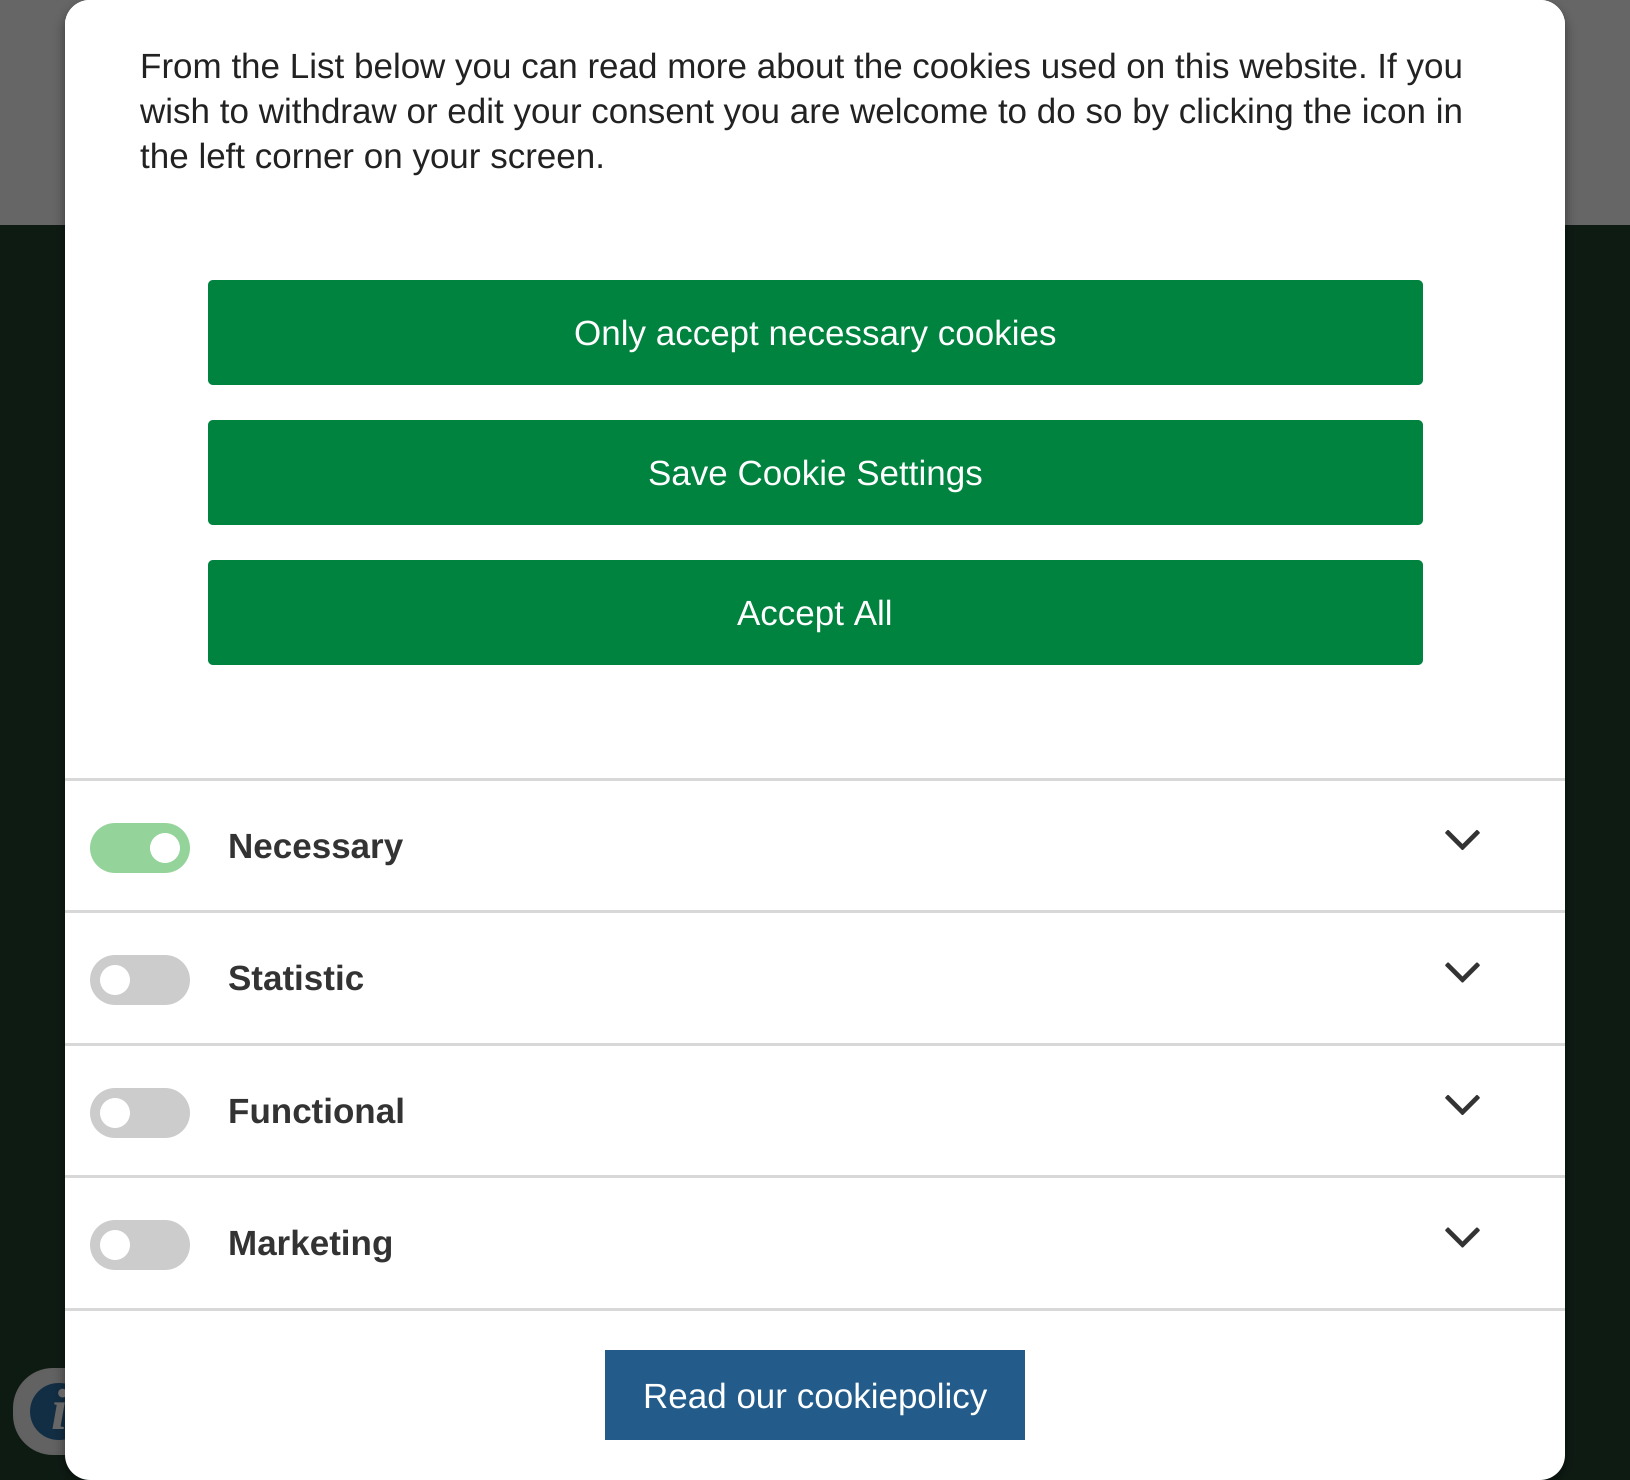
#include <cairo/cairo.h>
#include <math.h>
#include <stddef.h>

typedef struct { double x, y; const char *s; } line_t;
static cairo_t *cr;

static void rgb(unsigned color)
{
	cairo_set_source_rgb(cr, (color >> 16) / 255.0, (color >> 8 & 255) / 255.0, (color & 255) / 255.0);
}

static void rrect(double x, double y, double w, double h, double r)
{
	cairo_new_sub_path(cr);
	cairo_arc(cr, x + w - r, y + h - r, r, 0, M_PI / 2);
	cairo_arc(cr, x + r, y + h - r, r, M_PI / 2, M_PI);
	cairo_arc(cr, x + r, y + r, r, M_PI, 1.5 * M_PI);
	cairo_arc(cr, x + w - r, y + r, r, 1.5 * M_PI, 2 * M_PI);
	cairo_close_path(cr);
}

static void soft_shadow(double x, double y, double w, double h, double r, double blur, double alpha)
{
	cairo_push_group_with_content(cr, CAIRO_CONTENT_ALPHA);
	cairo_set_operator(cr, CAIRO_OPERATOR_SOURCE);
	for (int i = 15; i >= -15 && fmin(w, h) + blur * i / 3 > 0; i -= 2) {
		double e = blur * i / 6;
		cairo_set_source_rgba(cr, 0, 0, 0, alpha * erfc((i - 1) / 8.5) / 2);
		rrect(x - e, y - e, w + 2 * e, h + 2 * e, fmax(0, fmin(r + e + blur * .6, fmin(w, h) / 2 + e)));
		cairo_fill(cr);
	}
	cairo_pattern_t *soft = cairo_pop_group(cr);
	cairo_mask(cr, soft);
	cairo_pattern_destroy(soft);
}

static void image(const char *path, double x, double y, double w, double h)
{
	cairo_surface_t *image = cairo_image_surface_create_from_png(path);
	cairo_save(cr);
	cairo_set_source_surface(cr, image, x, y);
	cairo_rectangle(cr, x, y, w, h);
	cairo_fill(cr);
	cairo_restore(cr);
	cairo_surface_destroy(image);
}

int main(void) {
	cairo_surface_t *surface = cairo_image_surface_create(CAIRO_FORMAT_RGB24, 1630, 1480);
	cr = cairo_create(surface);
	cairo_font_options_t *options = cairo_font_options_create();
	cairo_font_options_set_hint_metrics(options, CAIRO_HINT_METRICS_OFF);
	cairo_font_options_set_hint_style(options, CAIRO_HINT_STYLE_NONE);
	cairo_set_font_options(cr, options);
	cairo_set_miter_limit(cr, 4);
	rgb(0x0e1b13);
	cairo_paint(cr);
	rgb(0x666666);
	cairo_rectangle(cr, 0, 0, 1630, 225);
	cairo_fill(cr);
	rgb(0x626262);
	rrect(14.5, 1369.5, 89, 84, 38.5);
	cairo_fill_preserve(cr);
	rgb(0x616161);
	cairo_set_line_width(cr, 3);
	cairo_stroke(cr);
	rgb(0x122e44);
	rrect(30, 1383, 58, 57, 28.5);
	cairo_fill(cr);
	rgb(0x000000);
	soft_shadow(65, 5, 1500, 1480, 25, 6, 0.46);
	cairo_select_font_face(cr, "Liberation Serif", CAIRO_FONT_SLANT_ITALIC, CAIRO_FONT_WEIGHT_BOLD);
	cairo_set_font_size(cr, 58);
	rgb(0x666666);
	cairo_move_to(cr, 51, 1429);
	cairo_show_text(cr, "i");
	rgb(0xffffff);
	rrect(65, 0, 1500, 1480, 25);
	cairo_fill(cr);
	cairo_new_path(cr);
	cairo_move_to(cr, 90, 0);
	cairo_line_to(cr, 1540, 0);
	cairo_curve_to(cr, 1554, 0, 1565, 11, 1565, 25);
	cairo_line_to(cr, 1565, 780);
	cairo_line_to(cr, 65, 780);
	cairo_line_to(cr, 65, 25);
	cairo_curve_to(cr, 65, 11, 76, 0, 90, 0);
	cairo_close_path(cr);
	cairo_fill(cr);
	rgb(0xd8d8d8);
	cairo_rectangle(cr, 65, 778, 1500, 3);
	cairo_fill(cr);
	cairo_select_font_face(cr, "Liberation Sans", CAIRO_FONT_SLANT_NORMAL, CAIRO_FONT_WEIGHT_NORMAL);
	cairo_set_font_size(cr, 35);
	rgb(0x222222);
	{
		static const line_t items[] = {
			{140, 78, "From the List below you can read more about the cookies used on this website. If you"},
			{140, 123, "wish to withdraw or edit your consent you are welcome to do so by clicking the icon in"},
			{140, 168, "the left corner on your screen."},
		};
		for (size_t i = 0; i < sizeof items / sizeof *items; i++) {
			cairo_move_to(cr, items[i].x, items[i].y);
			cairo_show_text(cr, items[i].s);
		}
	}
	rgb(0x00833e);
	rrect(208, 280, 1215, 105, 5);
	cairo_fill(cr);
	rgb(0xffffff);
	cairo_move_to(cr, 574, 345);
	cairo_show_text(cr, "Only accept necessary cookies");
	rgb(0x00833e);
	rrect(208, 420, 1215, 105, 5);
	cairo_fill(cr);
	rgb(0xffffff);
	cairo_move_to(cr, 648, 485);
	cairo_show_text(cr, "Save Cookie Settings");
	rgb(0x00833e);
	rrect(208, 560, 1215, 105, 5);
	cairo_fill(cr);
	rgb(0xffffff);
	cairo_move_to(cr, 737, 625);
	cairo_show_text(cr, "Accept All");
	rgb(0xd8d8d8);
	cairo_rectangle(cr, 65, 910, 1500, 3);
	cairo_fill(cr);
	rgb(0x94d49a);
	rrect(90, 823, 100, 50, 25);
	cairo_fill(cr);
	rgb(0xffffff);
	cairo_arc(cr, 165, 848, 15, 0, 2 * M_PI);
	cairo_fill(cr);
	cairo_select_font_face(cr, "Liberation Sans", CAIRO_FONT_SLANT_NORMAL, CAIRO_FONT_WEIGHT_BOLD);
	rgb(0x333333);
	cairo_move_to(cr, 228, 858);
	cairo_show_text(cr, "Necessary");
	image("img/1.png", 1445, 829, 35, 22);
	rgb(0xd8d8d8);
	cairo_rectangle(cr, 65, 1043, 1500, 3);
	cairo_fill(cr);
	rgb(0xcccccc);
	rrect(90, 955, 100, 50, 25);
	cairo_fill(cr);
	rgb(0xffffff);
	cairo_arc(cr, 115, 980, 15, 0, 2 * M_PI);
	cairo_fill(cr);
	rgb(0x333333);
	cairo_move_to(cr, 228, 990);
	cairo_show_text(cr, "Statistic");
	image("img/2.png", 1445, 962, 35, 21);
	rgb(0xd8d8d8);
	cairo_rectangle(cr, 65, 1175, 1500, 3);
	cairo_fill(cr);
	rgb(0xcccccc);
	rrect(90, 1088, 100, 50, 25);
	cairo_fill(cr);
	rgb(0xffffff);
	cairo_arc(cr, 115, 1113, 15, 0, 2 * M_PI);
	cairo_fill(cr);
	rgb(0x333333);
	cairo_move_to(cr, 228, 1123);
	cairo_show_text(cr, "Functional");
	image("img/1.png", 1445, 1094, 35, 22);
	rgb(0xd8d8d8);
	cairo_rectangle(cr, 65, 1308, 1500, 3);
	cairo_fill(cr);
	rgb(0xcccccc);
	rrect(90, 1220, 100, 50, 25);
	cairo_fill(cr);
	rgb(0xffffff);
	cairo_arc(cr, 115, 1245, 15, 0, 2 * M_PI);
	cairo_fill(cr);
	rgb(0x333333);
	cairo_move_to(cr, 228, 1255);
	cairo_show_text(cr, "Marketing");
	image("img/2.png", 1445, 1227, 35, 21);
	rgb(0x235c8b);
	cairo_rectangle(cr, 605, 1350, 420, 90);
	cairo_fill(cr);
	cairo_select_font_face(cr, "Liberation Sans", CAIRO_FONT_SLANT_NORMAL, CAIRO_FONT_WEIGHT_NORMAL);
	rgb(0xffffff);
	cairo_move_to(cr, 643, 1408);
	cairo_show_text(cr, "Read our cookiepolicy");
	cairo_surface_write_to_png(surface, "page.png");
	cairo_font_options_destroy(options);
	cairo_destroy(cr);
	cairo_surface_destroy(surface);
	return 0;
}
